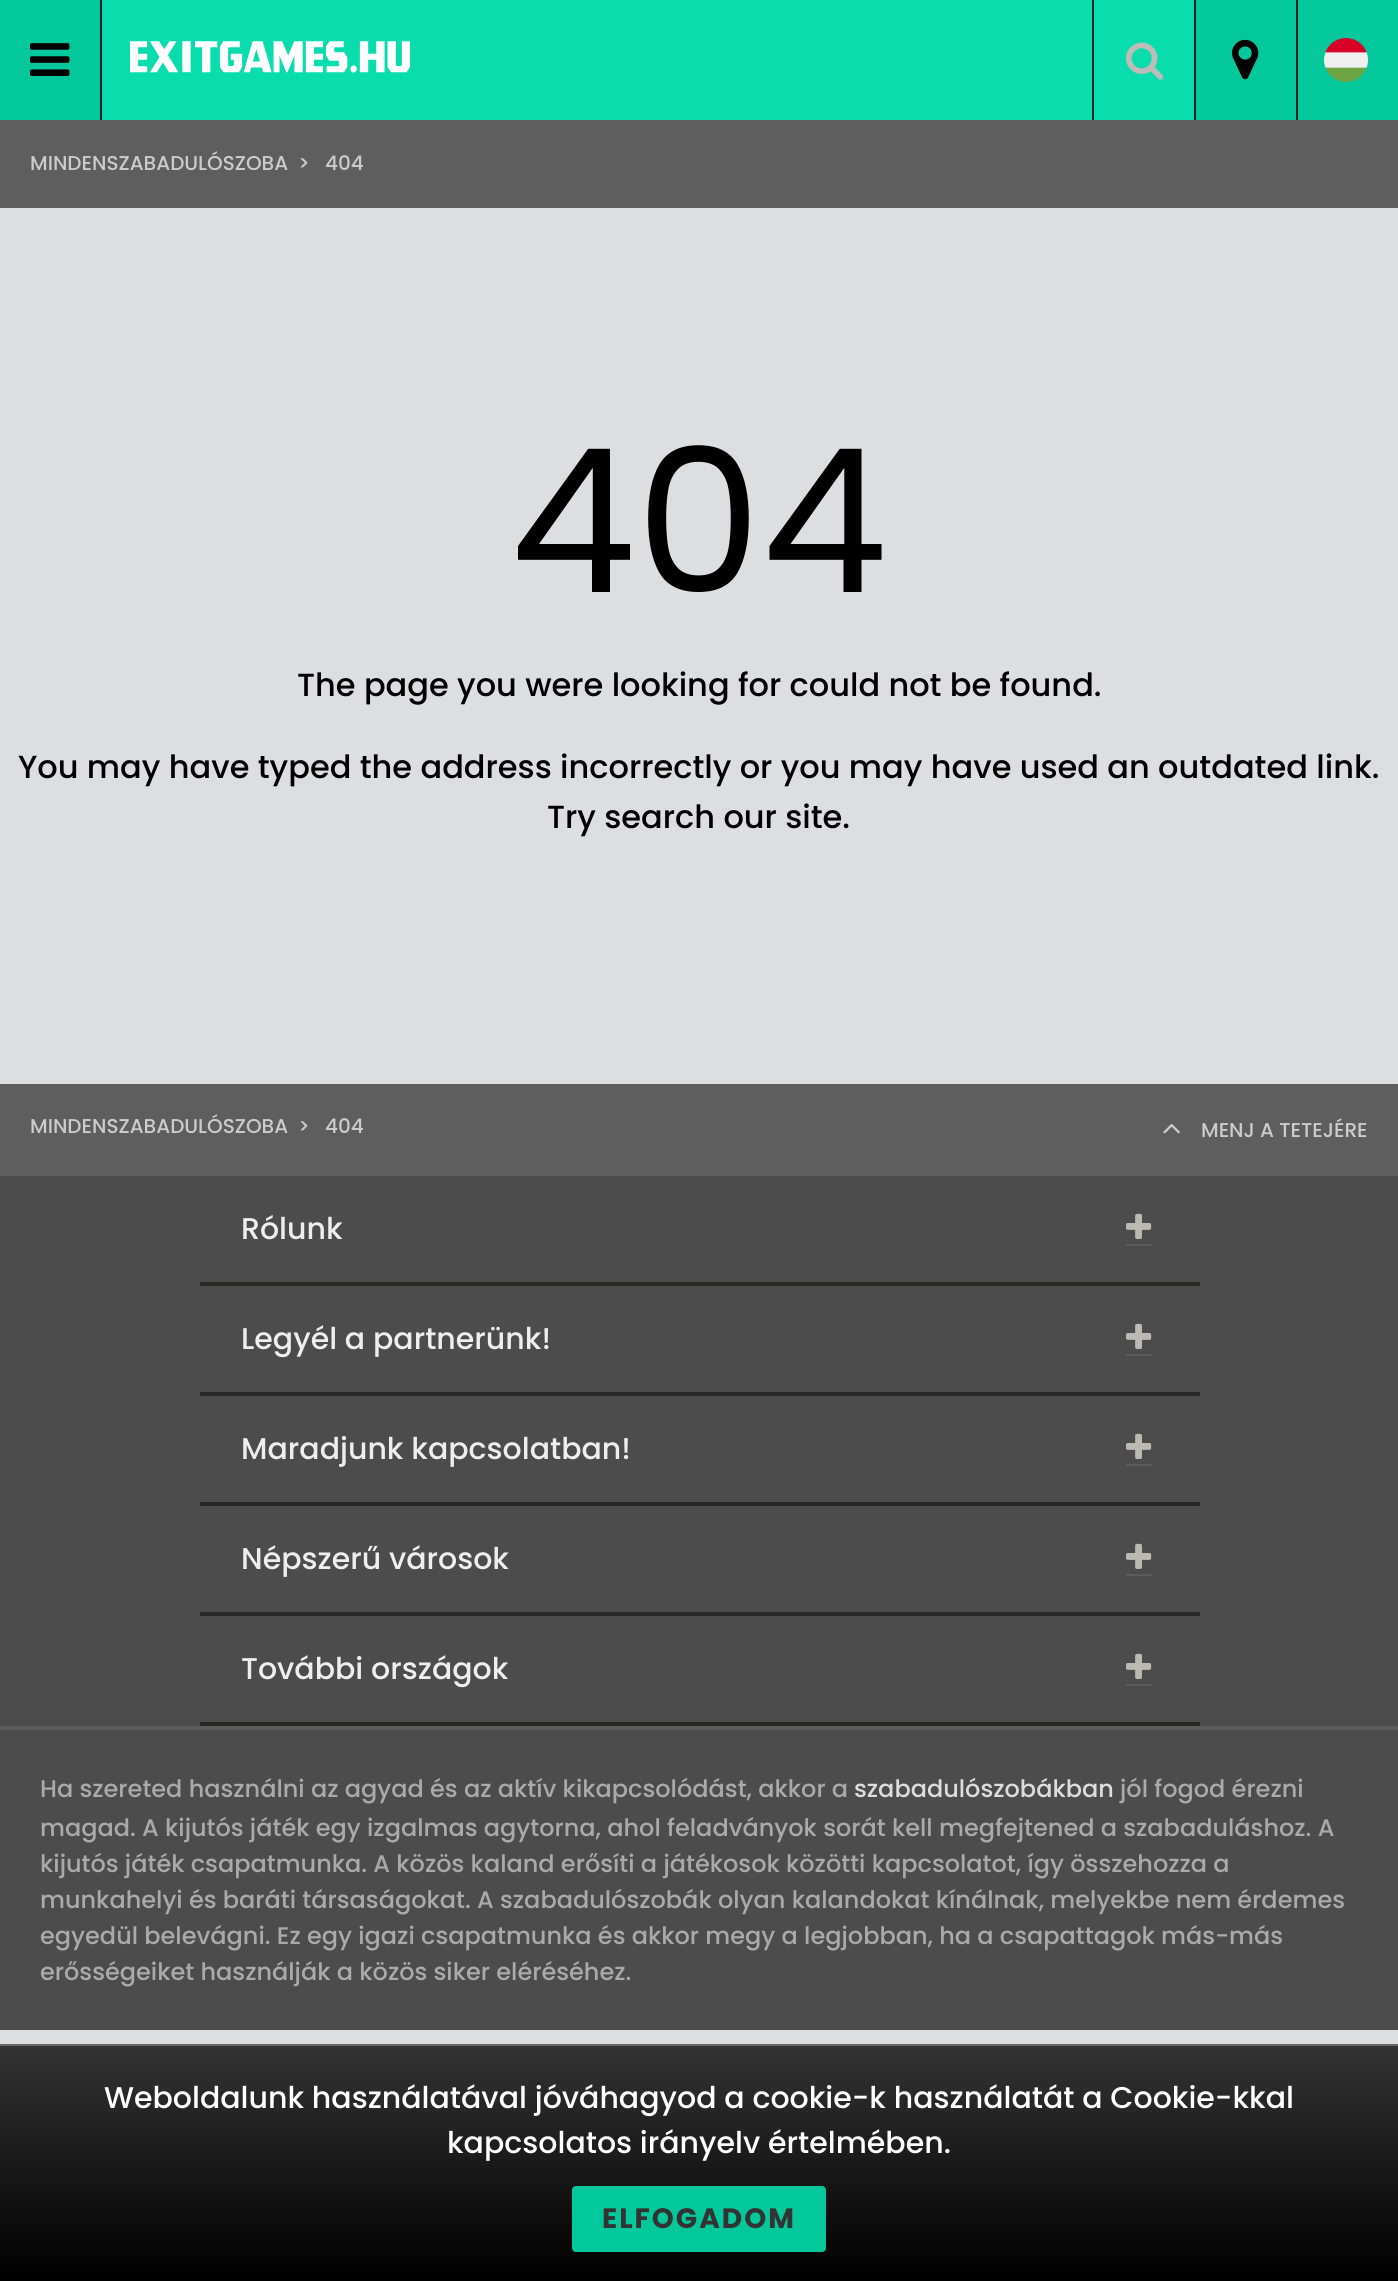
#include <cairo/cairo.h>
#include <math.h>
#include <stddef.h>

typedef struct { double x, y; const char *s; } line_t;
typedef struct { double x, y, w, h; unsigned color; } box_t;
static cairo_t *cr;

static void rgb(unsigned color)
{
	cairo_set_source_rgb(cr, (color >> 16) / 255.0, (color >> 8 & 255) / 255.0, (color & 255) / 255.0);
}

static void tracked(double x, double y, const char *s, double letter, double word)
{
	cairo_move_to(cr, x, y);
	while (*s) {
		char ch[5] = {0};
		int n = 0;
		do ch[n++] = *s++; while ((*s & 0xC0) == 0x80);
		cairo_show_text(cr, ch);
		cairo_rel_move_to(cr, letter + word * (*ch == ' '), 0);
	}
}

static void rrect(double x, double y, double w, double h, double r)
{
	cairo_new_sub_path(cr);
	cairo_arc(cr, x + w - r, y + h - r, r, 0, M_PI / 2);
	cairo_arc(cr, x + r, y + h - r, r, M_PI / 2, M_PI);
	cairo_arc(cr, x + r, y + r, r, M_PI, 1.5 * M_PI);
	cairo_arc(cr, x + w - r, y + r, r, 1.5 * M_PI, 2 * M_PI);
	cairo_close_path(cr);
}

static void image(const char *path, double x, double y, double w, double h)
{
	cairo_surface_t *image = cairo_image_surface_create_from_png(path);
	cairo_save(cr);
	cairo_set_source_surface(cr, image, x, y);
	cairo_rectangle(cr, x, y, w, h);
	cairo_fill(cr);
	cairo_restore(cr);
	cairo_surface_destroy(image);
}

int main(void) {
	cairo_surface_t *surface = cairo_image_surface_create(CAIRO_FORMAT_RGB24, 1398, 2281);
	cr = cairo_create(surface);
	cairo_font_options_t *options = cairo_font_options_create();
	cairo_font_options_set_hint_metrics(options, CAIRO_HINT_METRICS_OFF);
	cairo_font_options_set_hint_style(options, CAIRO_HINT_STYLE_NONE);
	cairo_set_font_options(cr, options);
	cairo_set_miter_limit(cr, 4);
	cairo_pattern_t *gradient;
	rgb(0xdddee0);
	cairo_paint(cr);
	{
		static const box_t items[] = {
			{102, 0, 1092, 120, 0x09ddae},
			{0, 0, 100, 120, 0x03c89c},
			{100, 0, 2, 120, 0x222222},
		};
		for (size_t i = 0; i < sizeof items / sizeof *items; i++) {
			rgb(items[i].color);
			cairo_rectangle(cr, items[i].x, items[i].y, items[i].w, items[i].h);
			cairo_fill(cr);
		}
	}
	image("img/1.png", 30, 43, 40, 33);
	image("img/2.png", 130, 41, 280, 32);
	cairo_rectangle(cr, 1092, 0, 2, 120);
	cairo_fill(cr);
	image("img/3.png", 1126, 42, 38, 38);
	rgb(0x03c89c);
	cairo_rectangle(cr, 1196, 0, 100, 120);
	cairo_fill(cr);
	rgb(0x222222);
	cairo_rectangle(cr, 1194, 0, 2, 120);
	cairo_fill(cr);
	image("img/4.png", 1232, 39, 27, 41);
	rgb(0x03c89c);
	cairo_rectangle(cr, 1298, 0, 100, 120);
	cairo_fill(cr);
	rgb(0x222222);
	cairo_rectangle(cr, 1296, 0, 2, 120);
	cairo_fill(cr);
	image("img/5.png", 1324, 38, 44, 44);
	rgb(0x5e5e5e);
	cairo_rectangle(cr, 0, 120, 1398, 88);
	cairo_fill(cr);
	cairo_rectangle(cr, 0, 1084, 1398, 92);
	cairo_fill(cr);
	image("img/6.png", 1163, 1123, 17, 11);
	{
		static const box_t items[] = {
			{0, 1176, 1398, 854, 0x4c4c4c},
			{0, 1726, 1398, 4, 0x5b5b5b},
			{200, 1282, 1000, 4, 0x272726},
			{1126, 1244, 26, 2, 0x5b5b5b},
		};
		for (size_t i = 0; i < sizeof items / sizeof *items; i++) {
			rgb(items[i].color);
			cairo_rectangle(cr, items[i].x, items[i].y, items[i].w, items[i].h);
			cairo_fill(cr);
		}
	}
	image("img/7.png", 1126, 1213, 26, 26);
	rgb(0x272726);
	cairo_rectangle(cr, 200, 1392, 1000, 4);
	cairo_fill(cr);
	rgb(0x5b5b5b);
	cairo_rectangle(cr, 1126, 1354, 26, 2);
	cairo_fill(cr);
	image("img/7.png", 1126, 1323, 26, 26);
	rgb(0x272726);
	cairo_rectangle(cr, 200, 1502, 1000, 4);
	cairo_fill(cr);
	rgb(0x5b5b5b);
	cairo_rectangle(cr, 1126, 1464, 26, 2);
	cairo_fill(cr);
	image("img/7.png", 1126, 1433, 26, 26);
	rgb(0x272726);
	cairo_rectangle(cr, 200, 1612, 1000, 4);
	cairo_fill(cr);
	rgb(0x5b5b5b);
	cairo_rectangle(cr, 1126, 1574, 26, 2);
	cairo_fill(cr);
	image("img/7.png", 1126, 1543, 26, 26);
	rgb(0x272726);
	cairo_rectangle(cr, 200, 1722, 1000, 4);
	cairo_fill(cr);
	rgb(0x5b5b5b);
	cairo_rectangle(cr, 1126, 1684, 26, 2);
	cairo_fill(cr);
	image("img/7.png", 1126, 1653, 26, 26);
	gradient = cairo_pattern_create_linear(699, 2046, 699, 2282);
	cairo_pattern_add_color_stop_rgba(gradient, 0, 0.2, 0.2, 0.2, 1);
	cairo_pattern_add_color_stop_rgba(gradient, 1, 0, 0, 0, 1);
	cairo_set_source(cr, gradient);
	cairo_pattern_destroy(gradient);
	cairo_rectangle(cr, 0, 2046, 1398, 235);
	cairo_fill(cr);
	rgb(0x666666);
	cairo_rectangle(cr, 0, 2044, 1398, 2);
	cairo_fill(cr);
	rgb(0x03c89c);
	rrect(572, 2186, 254, 66, 4);
	cairo_fill(cr);
	cairo_select_font_face(cr, "Poppins Medium", CAIRO_FONT_SLANT_NORMAL, CAIRO_FONT_WEIGHT_NORMAL);
	cairo_set_font_size(cr, 20);
	rgb(0xcccccc);
	{
		static const line_t items[] = {
			{30, 170, "MINDENSZABADULÓSZOBA"},
			{298, 170, ">"},
			{325, 170, "404"},
		};
		for (size_t i = 0; i < sizeof items / sizeof *items; i++) {
			cairo_move_to(cr, items[i].x, items[i].y);
			cairo_show_text(cr, items[i].s);
		}
	}
	cairo_select_font_face(cr, "Poppins", CAIRO_FONT_SLANT_NORMAL, CAIRO_FONT_WEIGHT_NORMAL);
	cairo_set_font_size(cr, 200);
	rgb(0x000000);
	cairo_move_to(cr, 510, 592);
	cairo_show_text(cr, "404");
	cairo_select_font_face(cr, "Poppins Medium", CAIRO_FONT_SLANT_NORMAL, CAIRO_FONT_WEIGHT_NORMAL);
	cairo_set_font_size(cr, 32);
	{
		static const line_t items[] = {
			{297, 696, "The page you were looking for could not be found."},
			{18, 778, "You may have typed the address incorrectly or you may have used an outdated link."},
			{547, 828, "Try search our site."},
		};
		for (size_t i = 0; i < sizeof items / sizeof *items; i++) {
			cairo_move_to(cr, items[i].x, items[i].y);
			cairo_show_text(cr, items[i].s);
		}
	}
	cairo_set_font_size(cr, 20);
	rgb(0xcccccc);
	{
		static const line_t items[] = {
			{30, 1133, "MINDENSZABADULÓSZOBA"},
			{298, 1133, ">"},
			{325, 1133, "404"},
			{1201, 1137, "MENJ A TETEJÉRE"},
		};
		for (size_t i = 0; i < sizeof items / sizeof *items; i++) {
			cairo_move_to(cr, items[i].x, items[i].y);
			cairo_show_text(cr, items[i].s);
		}
	}
	cairo_set_font_size(cr, 30);
	rgb(0xeeeeee);
	{
		static const line_t items[] = {
			{241, 1239, "Rólunk"},
			{241, 1349, "Legyél a partnerünk!"},
			{241, 1459, "Maradjunk kapcsolatban!"},
			{241, 1569, "Népszerű városok"},
			{241, 1679, "További országok"},
		};
		for (size_t i = 0; i < sizeof items / sizeof *items; i++) {
			cairo_move_to(cr, items[i].x, items[i].y);
			cairo_show_text(cr, items[i].s);
		}
	}
	cairo_set_font_size(cr, 24);
	rgb(0xaaaaaa);
	cairo_move_to(cr, 40, 1797);
	cairo_show_text(cr, "Ha szereted használni az agyad és az aktív kikapcsolódást, akkor a");
	rgb(0xdddddd);
	cairo_move_to(cr, 854, 1797);
	cairo_show_text(cr, "szabadulószobákban");
	rgb(0xaaaaaa);
	{
		static const line_t items[] = {
			{1120, 1797, "jól fogod érezni"},
			{40, 1836, "magad. A kijutós játék egy izgalmas agytorna, ahol feladványok sorát kell megfejtened a szabaduláshoz. A"},
			{40, 1872, "kijutós játék csapatmunka. A közös kaland erősíti a játékosok közötti kapcsolatot, így összehozza a"},
			{40, 1908, "munkahelyi és baráti társaságokat. A szabadulószobák olyan kalandokat kínálnak, melyekbe nem érdemes"},
			{40, 1944, "egyedül belevágni. Ez egy igazi csapatmunka és akkor megy a legjobban, ha a csapattagok más-más"},
			{40, 1980, "erősségeiket használják a közös siker eléréséhez."},
		};
		for (size_t i = 0; i < sizeof items / sizeof *items; i++) {
			cairo_move_to(cr, items[i].x, items[i].y);
			cairo_show_text(cr, items[i].s);
		}
	}
	cairo_set_font_size(cr, 30);
	rgb(0xffffff);
	cairo_move_to(cr, 104, 2108);
	cairo_show_text(cr, "Weboldalunk használatával jóváhagyod a cookie-k használatát a Cookie-kkal");
	cairo_move_to(cr, 447, 2153);
	cairo_show_text(cr, "kapcsolatos irányelv értelmében.");
	cairo_select_font_face(cr, "Poppins", CAIRO_FONT_SLANT_NORMAL, CAIRO_FONT_WEIGHT_BOLD);
	cairo_set_font_size(cr, 28);
	rgb(0x333333);
	tracked(602, 2228, "ELFOGADOM", 2, 0);
	cairo_surface_write_to_png(surface, "page.png");
	cairo_font_options_destroy(options);
	cairo_destroy(cr);
	cairo_surface_destroy(surface);
	return 0;
}
